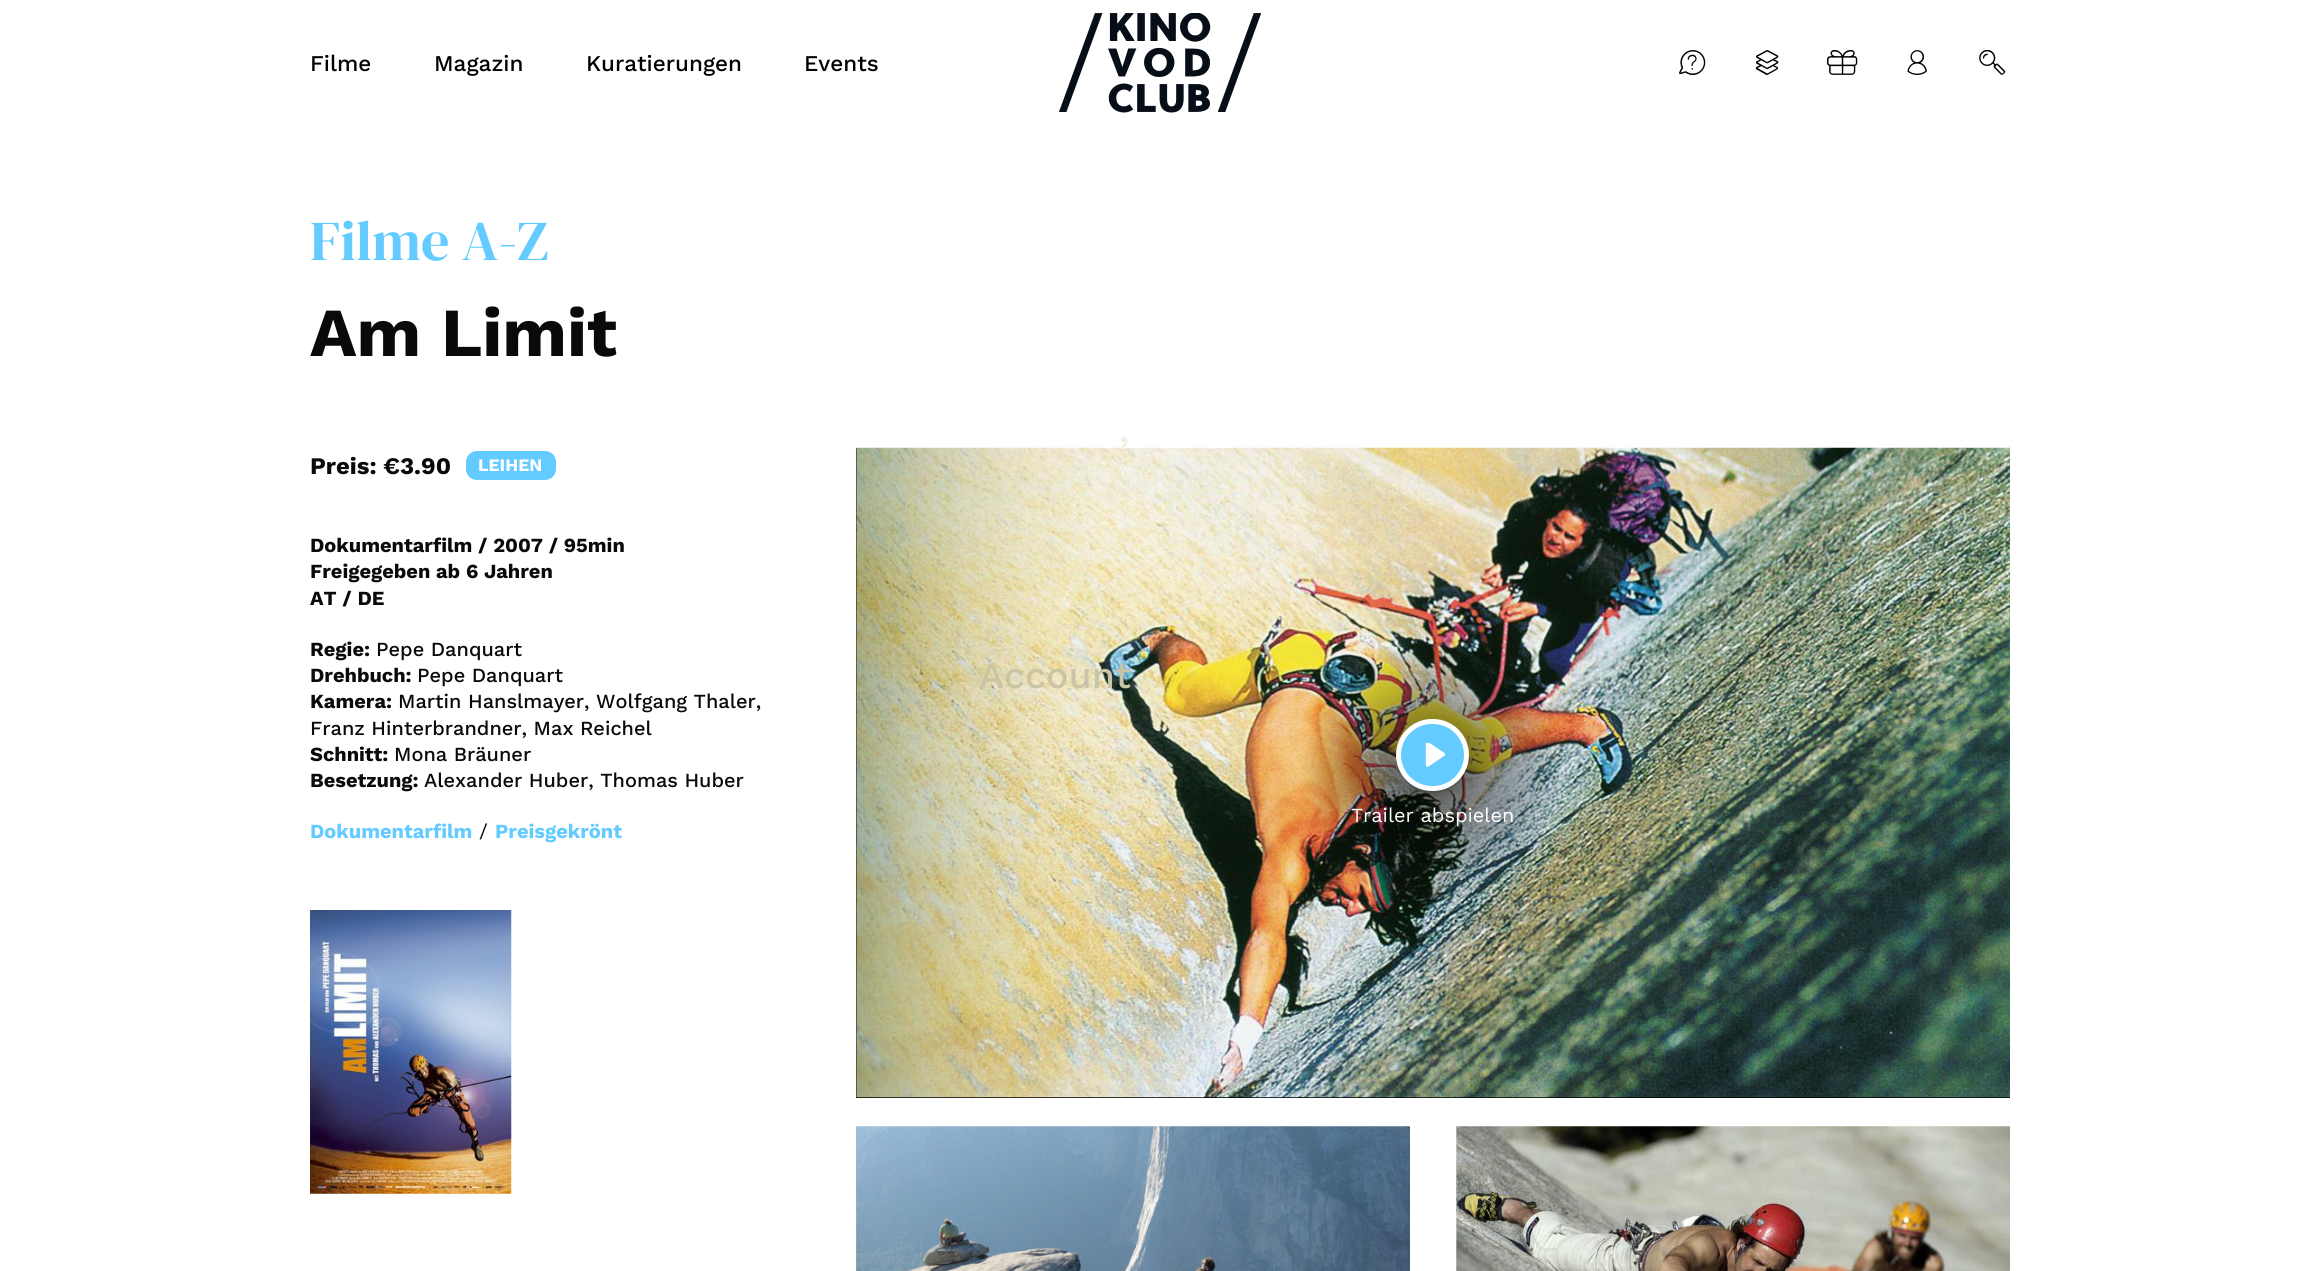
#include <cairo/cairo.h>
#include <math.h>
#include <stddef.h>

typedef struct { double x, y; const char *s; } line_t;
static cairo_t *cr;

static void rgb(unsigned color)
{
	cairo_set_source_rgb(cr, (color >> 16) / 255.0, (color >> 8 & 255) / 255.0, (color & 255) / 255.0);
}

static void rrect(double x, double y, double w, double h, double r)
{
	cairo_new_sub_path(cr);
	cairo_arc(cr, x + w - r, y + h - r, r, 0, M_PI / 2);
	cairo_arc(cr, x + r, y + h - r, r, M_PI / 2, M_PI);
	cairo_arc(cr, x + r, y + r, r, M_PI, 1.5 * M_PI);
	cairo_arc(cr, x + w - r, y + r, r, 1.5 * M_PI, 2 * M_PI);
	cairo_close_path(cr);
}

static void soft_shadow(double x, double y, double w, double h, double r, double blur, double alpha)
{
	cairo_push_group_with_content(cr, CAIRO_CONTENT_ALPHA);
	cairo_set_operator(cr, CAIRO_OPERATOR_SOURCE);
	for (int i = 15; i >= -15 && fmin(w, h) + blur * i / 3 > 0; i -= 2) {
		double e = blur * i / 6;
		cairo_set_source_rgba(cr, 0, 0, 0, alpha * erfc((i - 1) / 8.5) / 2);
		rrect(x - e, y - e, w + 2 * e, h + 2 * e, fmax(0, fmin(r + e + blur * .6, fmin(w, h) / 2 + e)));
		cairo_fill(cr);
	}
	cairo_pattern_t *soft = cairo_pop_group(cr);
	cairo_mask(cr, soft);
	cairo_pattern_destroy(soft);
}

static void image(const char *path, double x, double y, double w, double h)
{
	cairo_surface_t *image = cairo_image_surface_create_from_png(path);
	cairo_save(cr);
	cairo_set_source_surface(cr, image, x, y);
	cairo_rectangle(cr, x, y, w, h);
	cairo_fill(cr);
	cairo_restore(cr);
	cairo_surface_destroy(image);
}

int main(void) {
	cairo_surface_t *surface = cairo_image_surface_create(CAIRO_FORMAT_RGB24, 2320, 1271);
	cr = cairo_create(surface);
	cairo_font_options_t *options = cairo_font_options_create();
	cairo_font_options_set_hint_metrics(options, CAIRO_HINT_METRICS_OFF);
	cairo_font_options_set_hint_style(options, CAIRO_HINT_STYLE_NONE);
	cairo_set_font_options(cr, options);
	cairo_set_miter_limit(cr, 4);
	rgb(0xffffff);
	cairo_paint(cr);
	image("img/1.png", 1059, 13, 202, 100);
	image("img/2.png", 1679, 50, 27, 25);
	image("img/3.png", 1755, 50, 24, 25);
	image("img/4.png", 1827, 50, 31, 25);
	image("img/5.png", 1907, 50, 20, 25);
	image("img/6.png", 1979, 50, 27, 25);
	rgb(0x63cbff);
	rrect(464.5, 449.5, 93, 32, 12.5);
	cairo_fill_preserve(cr);
	rgb(0xffffff);
	cairo_set_line_width(cr, 3);
	cairo_stroke(cr);
	rgb(0x000000);
	cairo_rectangle(cr, 856, 448, 1154, 650);
	cairo_fill(cr);
	image("img/7.png", 856, 447, 1154, 651);
	rgb(0x000000);
	soft_shadow(1396, 720, 73, 73, 36.5, 0.5, 0.15);
	rgb(0x63cbff);
	rrect(1398.5, 721.5, 68, 67, 33.5);
	cairo_fill_preserve(cr);
	rgb(0xffffff);
	cairo_set_line_width(cr, 5);
	cairo_stroke(cr);
	image("img/8.png", 1425, 743, 21, 24);
	image("img/9.png", 310, 910, 202, 284);
	image("img/10.png", 856, 1126, 554, 145);
	image("img/11.png", 1456, 1126, 554, 145);
	cairo_select_font_face(cr, "Work Sans Medium", CAIRO_FONT_SLANT_NORMAL, CAIRO_FONT_WEIGHT_NORMAL);
	cairo_set_font_size(cr, 22.5);
	rgb(0x000000);
	{
		static const line_t items[] = {
			{310, 71, "Filme"},
			{434, 71, "Magazin"},
			{586, 71, "Kuratierungen"},
			{804, 71, "Events"},
		};
		for (size_t i = 0; i < sizeof items / sizeof *items; i++) {
			cairo_move_to(cr, items[i].x, items[i].y);
			cairo_show_text(cr, items[i].s);
		}
	}
	cairo_select_font_face(cr, "DM Serif Display", CAIRO_FONT_SLANT_NORMAL, CAIRO_FONT_WEIGHT_NORMAL);
	cairo_set_font_size(cr, 56.25);
	rgb(0x63cbff);
	cairo_move_to(cr, 310, 260);
	cairo_show_text(cr, "Filme A-Z");
	cairo_select_font_face(cr, "Work Sans", CAIRO_FONT_SLANT_NORMAL, CAIRO_FONT_WEIGHT_BOLD);
	cairo_set_font_size(cr, 68.75);
	rgb(0x0a0a0a);
	cairo_move_to(cr, 310, 356);
	cairo_show_text(cr, "Am Limit");
	cairo_set_font_size(cr, 23.75);
	cairo_move_to(cr, 310, 474);
	cairo_show_text(cr, "Preis: €3.90");
	cairo_set_font_size(cr, 17.5);
	rgb(0xffffff);
	cairo_move_to(cr, 478, 471);
	cairo_show_text(cr, "LEIHEN");
	cairo_set_font_size(cr, 20);
	rgb(0x0a0a0a);
	{
		static const line_t items[] = {
			{310, 552, "Dokumentarfilm / 2007 / 95min"},
			{310, 578, "Freigegeben ab 6 Jahren"},
			{310, 605, "AT / DE"},
			{310, 656, "Regie:"},
		};
		for (size_t i = 0; i < sizeof items / sizeof *items; i++) {
			cairo_move_to(cr, items[i].x, items[i].y);
			cairo_show_text(cr, items[i].s);
		}
	}
	cairo_select_font_face(cr, "Work Sans Medium", CAIRO_FONT_SLANT_NORMAL, CAIRO_FONT_WEIGHT_NORMAL);
	cairo_move_to(cr, 376, 656);
	cairo_show_text(cr, "Pepe Danquart");
	cairo_select_font_face(cr, "Work Sans", CAIRO_FONT_SLANT_NORMAL, CAIRO_FONT_WEIGHT_BOLD);
	cairo_move_to(cr, 310, 682);
	cairo_show_text(cr, "Drehbuch:");
	cairo_select_font_face(cr, "Work Sans Medium", CAIRO_FONT_SLANT_NORMAL, CAIRO_FONT_WEIGHT_NORMAL);
	cairo_move_to(cr, 417, 682);
	cairo_show_text(cr, "Pepe Danquart");
	cairo_select_font_face(cr, "Work Sans", CAIRO_FONT_SLANT_NORMAL, CAIRO_FONT_WEIGHT_BOLD);
	cairo_move_to(cr, 310, 708);
	cairo_show_text(cr, "Kamera:");
	cairo_select_font_face(cr, "Work Sans Medium", CAIRO_FONT_SLANT_NORMAL, CAIRO_FONT_WEIGHT_NORMAL);
	cairo_move_to(cr, 398, 708);
	cairo_show_text(cr, "Martin Hanslmayer, Wolfgang Thaler,");
	cairo_move_to(cr, 310, 735);
	cairo_show_text(cr, "Franz Hinterbrandner, Max Reichel");
	cairo_select_font_face(cr, "Work Sans", CAIRO_FONT_SLANT_NORMAL, CAIRO_FONT_WEIGHT_BOLD);
	cairo_move_to(cr, 310, 761);
	cairo_show_text(cr, "Schnitt:");
	cairo_select_font_face(cr, "Work Sans Medium", CAIRO_FONT_SLANT_NORMAL, CAIRO_FONT_WEIGHT_NORMAL);
	cairo_move_to(cr, 394, 761);
	cairo_show_text(cr, "Mona Bräuner");
	cairo_select_font_face(cr, "Work Sans", CAIRO_FONT_SLANT_NORMAL, CAIRO_FONT_WEIGHT_BOLD);
	cairo_move_to(cr, 310, 787);
	cairo_show_text(cr, "Besetzung:");
	cairo_select_font_face(cr, "Work Sans Medium", CAIRO_FONT_SLANT_NORMAL, CAIRO_FONT_WEIGHT_NORMAL);
	cairo_move_to(cr, 424, 787);
	cairo_show_text(cr, "Alexander Huber, Thomas Huber");
	cairo_select_font_face(cr, "Work Sans", CAIRO_FONT_SLANT_NORMAL, CAIRO_FONT_WEIGHT_NORMAL);
	rgb(0xffffff);
	cairo_move_to(cr, 1351, 822);
	cairo_show_text(cr, "Trailer abspielen");
	cairo_select_font_face(cr, "Work Sans", CAIRO_FONT_SLANT_NORMAL, CAIRO_FONT_WEIGHT_BOLD);
	rgb(0x63cbff);
	cairo_move_to(cr, 310, 838);
	cairo_show_text(cr, "Dokumentarfilm");
	cairo_select_font_face(cr, "Work Sans", CAIRO_FONT_SLANT_NORMAL, CAIRO_FONT_WEIGHT_NORMAL);
	rgb(0x0a0a0a);
	cairo_move_to(cr, 479, 838);
	cairo_show_text(cr, "/");
	cairo_select_font_face(cr, "Work Sans", CAIRO_FONT_SLANT_NORMAL, CAIRO_FONT_WEIGHT_BOLD);
	rgb(0x63cbff);
	cairo_move_to(cr, 495, 838);
	cairo_show_text(cr, "Preisgekrönt");
	cairo_select_font_face(cr, "Work Sans Medium", CAIRO_FONT_SLANT_NORMAL, CAIRO_FONT_WEIGHT_NORMAL);
	cairo_set_font_size(cr, 37.5);
	rgb(0xf2eddd);
	cairo_move_to(cr, 1119, 463);
	cairo_show_text(cr, "’");
	rgb(0xc7c5a5);
	cairo_move_to(cr, 979, 688);
	cairo_show_text(cr, "Account");
	cairo_surface_write_to_png(surface, "page.png");
	cairo_font_options_destroy(options);
	cairo_destroy(cr);
	cairo_surface_destroy(surface);
	return 0;
}
